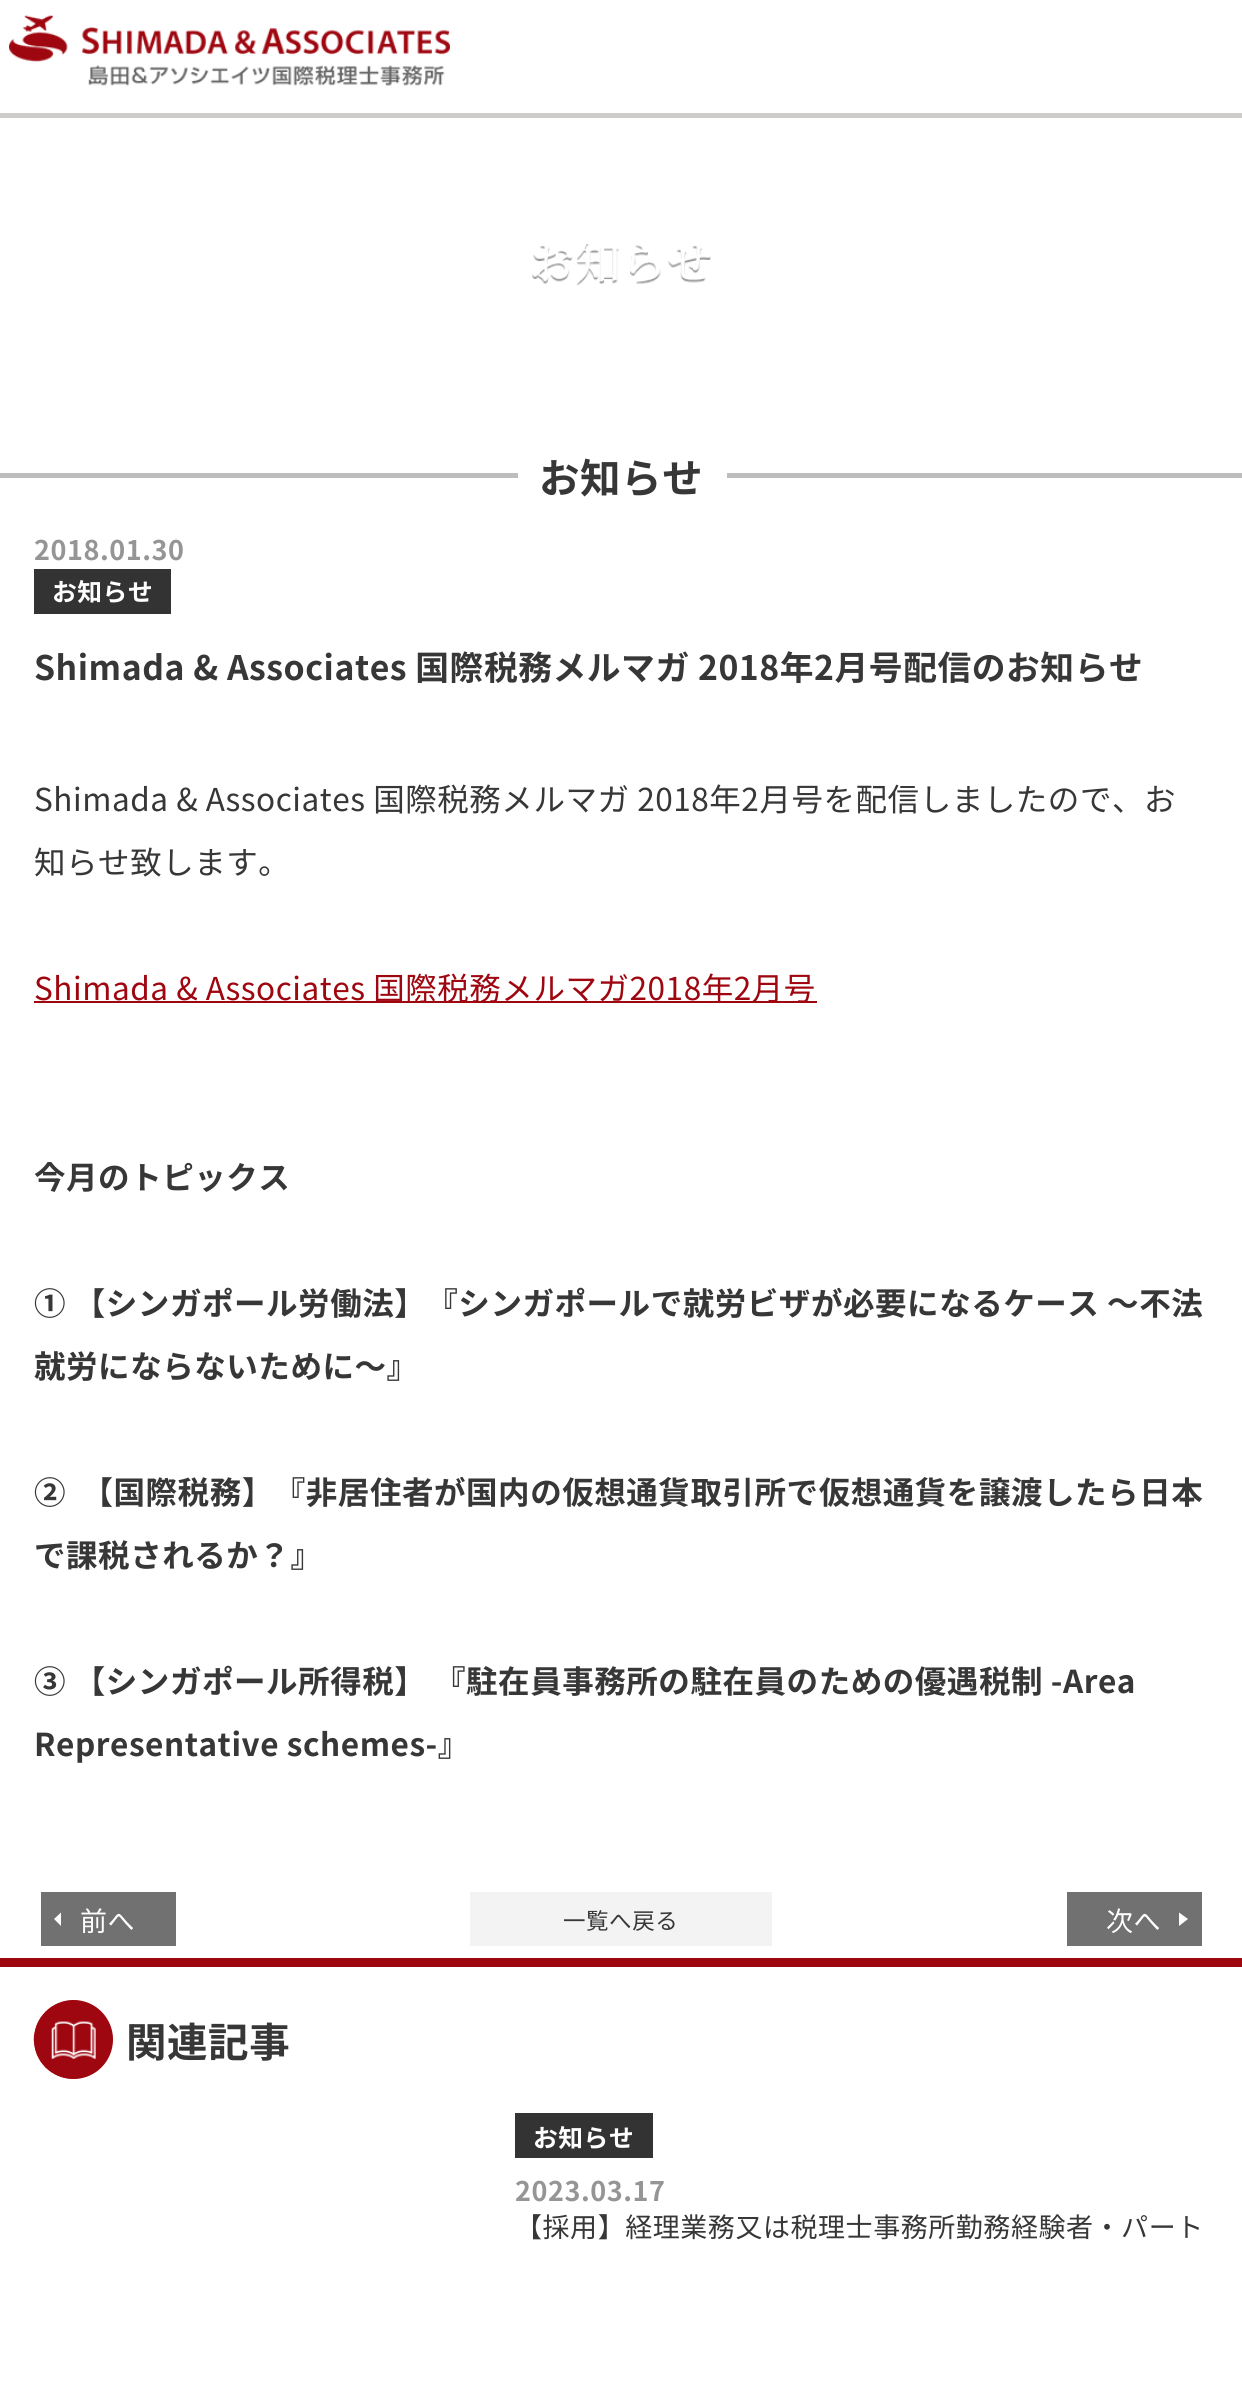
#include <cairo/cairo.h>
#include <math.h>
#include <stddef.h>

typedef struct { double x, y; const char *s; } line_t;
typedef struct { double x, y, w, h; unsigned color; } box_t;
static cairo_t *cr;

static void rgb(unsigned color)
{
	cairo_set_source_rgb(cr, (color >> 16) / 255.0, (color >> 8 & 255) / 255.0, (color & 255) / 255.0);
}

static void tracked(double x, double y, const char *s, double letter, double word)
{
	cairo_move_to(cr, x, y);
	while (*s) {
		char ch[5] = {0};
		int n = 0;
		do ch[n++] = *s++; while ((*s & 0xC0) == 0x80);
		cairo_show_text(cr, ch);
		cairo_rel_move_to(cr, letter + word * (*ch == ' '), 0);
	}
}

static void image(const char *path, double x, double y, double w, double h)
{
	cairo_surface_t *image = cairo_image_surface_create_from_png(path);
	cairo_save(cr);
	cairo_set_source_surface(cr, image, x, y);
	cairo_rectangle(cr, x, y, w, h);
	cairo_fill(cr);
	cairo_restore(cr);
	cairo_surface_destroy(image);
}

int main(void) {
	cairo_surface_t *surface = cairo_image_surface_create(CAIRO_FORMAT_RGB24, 1242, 2384);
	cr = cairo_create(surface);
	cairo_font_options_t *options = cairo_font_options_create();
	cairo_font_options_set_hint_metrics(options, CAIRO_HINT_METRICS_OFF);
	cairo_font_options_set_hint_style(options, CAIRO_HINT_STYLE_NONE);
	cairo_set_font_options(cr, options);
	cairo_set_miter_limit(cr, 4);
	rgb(0xffffff);
	cairo_paint(cr);
	rgb(0xcecbcb);
	cairo_rectangle(cr, 0, 113, 1242, 5);
	cairo_fill(cr);
	image("img/1.png", 9, 15, 441, 71);
	image("img/2.png", 532, 243, 179, 43);
	{
		static const box_t items[] = {
			{0, 473, 1242, 5, 0xbebdbd},
			{518, 473, 209, 5, 0xffffff},
			{34, 569, 137, 45, 0x333333},
			{34, 1001, 783, 2, 0x9f0710},
			{41, 1892, 135, 54, 0x717171},
		};
		for (size_t i = 0; i < sizeof items / sizeof *items; i++) {
			rgb(items[i].color);
			cairo_rectangle(cr, items[i].x, items[i].y, items[i].w, items[i].h);
			cairo_fill(cr);
		}
	}
	rgb(0xffffff);
	cairo_new_path(cr);
	cairo_move_to(cr, 61, 1912.5);
	cairo_line_to(cr, 61, 1926);
	cairo_line_to(cr, 54, 1919);
	cairo_close_path(cr);
	cairo_fill(cr);
	rgb(0xf3f3f3);
	cairo_rectangle(cr, 470, 1892, 302, 54);
	cairo_fill(cr);
	rgb(0x717171);
	cairo_rectangle(cr, 1067, 1892, 135, 54);
	cairo_fill(cr);
	rgb(0xffffff);
	cairo_new_path(cr);
	cairo_move_to(cr, 1179, 1926);
	cairo_line_to(cr, 1179, 1912.5);
	cairo_line_to(cr, 1188, 1919);
	cairo_close_path(cr);
	cairo_fill(cr);
	rgb(0x9f0710);
	cairo_rectangle(cr, 0, 1958, 1242, 9);
	cairo_fill(cr);
	cairo_arc(cr, 73.5, 2039.5, 39.5, 0, 2 * M_PI);
	cairo_fill(cr);
	image("img/3.png", 33, 2000, 80, 79);
	rgb(0x333333);
	cairo_rectangle(cr, 515, 2113, 138, 45);
	cairo_fill(cr);
	cairo_select_font_face(cr, "Noto Sans JP", CAIRO_FONT_SLANT_NORMAL, CAIRO_FONT_WEIGHT_BOLD);
	cairo_set_font_size(cr, 40.5);
	rgb(0x373737);
	tracked(539, 493, "お知らせ", 0.55, 0);
	cairo_set_font_size(cr, 27);
	rgb(0x959595);
	tracked(34, 560, "2018.01.30", 0.55, 0);
	cairo_set_font_size(cr, 24.75);
	rgb(0xffffff);
	tracked(52, 601, "お知らせ", 0.55, 0);
	cairo_set_font_size(cr, 33.75);
	rgb(0x373737);
	tracked(34, 680, "Shimada & Associates 国際税務メルマガ 2018年2月号配信のお知らせ", 0.55, 0);
	cairo_select_font_face(cr, "Noto Sans JP", CAIRO_FONT_SLANT_NORMAL, CAIRO_FONT_WEIGHT_NORMAL);
	cairo_set_font_size(cr, 31.5);
	tracked(34, 811, "Shimada & Associates 国際税務メルマガ 2018年2月号を配信しましたので、お", 0.55, 0);
	tracked(34, 874, "知らせ致します。", 0.55, 0);
	rgb(0x9f0710);
	tracked(34, 1000, "Shimada & Associates 国際税務メルマガ2018年2月号", 0.55, 0);
	cairo_select_font_face(cr, "Noto Sans JP", CAIRO_FONT_SLANT_NORMAL, CAIRO_FONT_WEIGHT_BOLD);
	rgb(0x373737);
	{
		static const line_t items[] = {
			{34, 1189, "今月のトピックス"},
			{34, 1315, "① 【シンガポール労働法】『シンガポールで就労ビザが必要になるケース ～不法"},
			{34, 1378, "就労にならないために～』"},
			{34, 1504, "②  【国際税務】『非居住者が国内の仮想通貨取引所で仮想通貨を譲渡したら日本"},
			{34, 1567, "で課税されるか？』"},
			{34, 1693, "③ 【シンガポール所得税】 『駐在員事務所の駐在員のための優遇税制 -Area"},
			{34, 1756, "Representative schemes-』"},
		};
		for (size_t i = 0; i < sizeof items / sizeof *items; i++) {
			tracked(items[i].x, items[i].y, items[i].s, 0.55, 0);
		}
	}
	cairo_select_font_face(cr, "Noto Sans JP", CAIRO_FONT_SLANT_NORMAL, CAIRO_FONT_WEIGHT_NORMAL);
	cairo_set_font_size(cr, 27);
	rgb(0xffffff);
	tracked(80, 1931, "前へ", 0.55, 0);
	cairo_set_font_size(cr, 22.5);
	rgb(0x373737);
	tracked(563, 1929, "一覧へ戻る", 0.55, 0);
	cairo_set_font_size(cr, 27);
	rgb(0xffffff);
	tracked(1106, 1931, "次へ", 0.55, 0);
	cairo_select_font_face(cr, "Noto Sans JP", CAIRO_FONT_SLANT_NORMAL, CAIRO_FONT_WEIGHT_BOLD);
	cairo_set_font_size(cr, 40.5);
	rgb(0x373737);
	tracked(126, 2057, "関連記事", 0.55, 0);
	cairo_set_font_size(cr, 24.75);
	rgb(0xffffff);
	tracked(533, 2147, "お知らせ", 0.55, 0);
	cairo_set_font_size(cr, 27);
	rgb(0x959595);
	tracked(515, 2201, "2023.03.17", 0.55, 0);
	cairo_select_font_face(cr, "Noto Sans JP", CAIRO_FONT_SLANT_NORMAL, CAIRO_FONT_WEIGHT_NORMAL);
	rgb(0x373737);
	tracked(515, 2237, "【採用】経理業務又は税理士事務所勤務経験者・パート", 0.55, 0);
	cairo_surface_write_to_png(surface, "page.png");
	cairo_font_options_destroy(options);
	cairo_destroy(cr);
	cairo_surface_destroy(surface);
	return 0;
}
